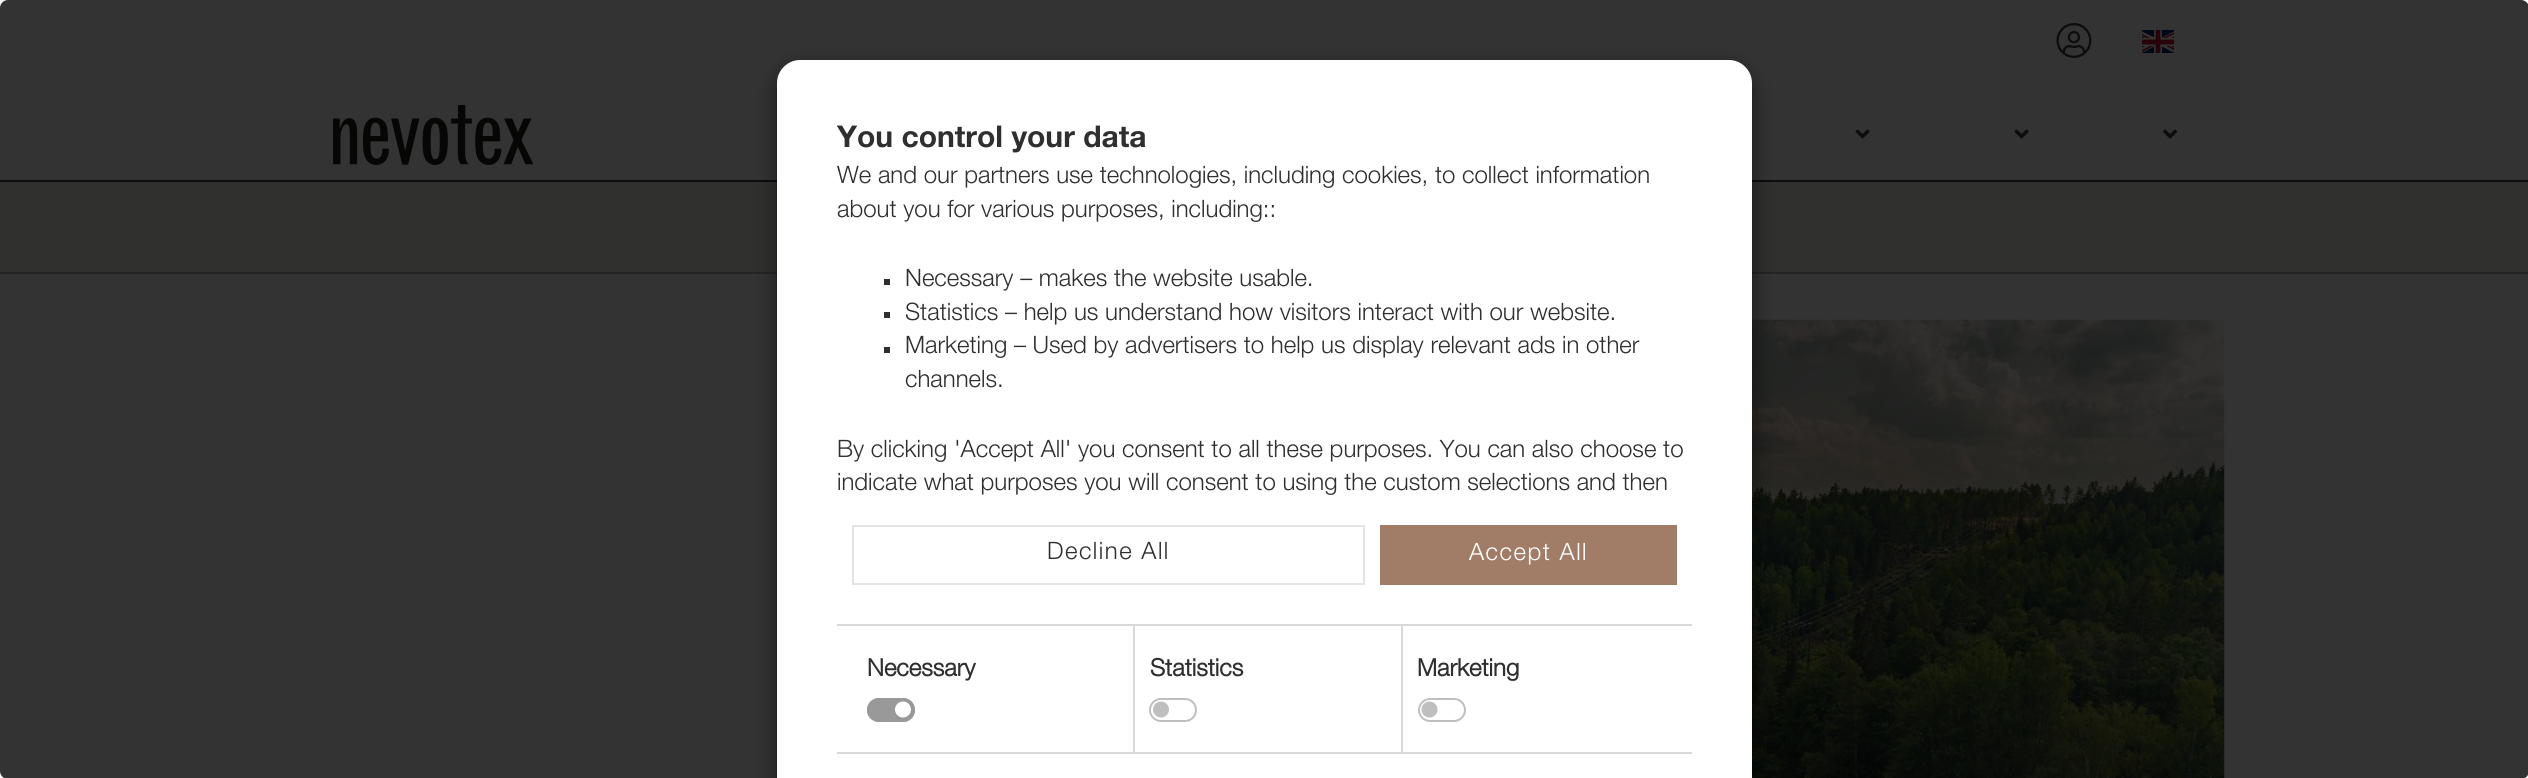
#include <cairo/cairo.h>
#include <math.h>
#include <stddef.h>

typedef struct { double x, y; const char *s; } line_t;
typedef struct { double x, y, w, h; unsigned color; } box_t;
static cairo_t *cr;

static void rgb(unsigned color)
{
	cairo_set_source_rgb(cr, (color >> 16) / 255.0, (color >> 8 & 255) / 255.0, (color & 255) / 255.0);
}

static void tracked(double x, double y, const char *s, double letter, double word)
{
	cairo_move_to(cr, x, y);
	while (*s) {
		char ch[5] = {0};
		int n = 0;
		do ch[n++] = *s++; while ((*s & 0xC0) == 0x80);
		cairo_show_text(cr, ch);
		cairo_rel_move_to(cr, letter + word * (*ch == ' '), 0);
	}
}

static void rrect(double x, double y, double w, double h, double r)
{
	cairo_new_sub_path(cr);
	cairo_arc(cr, x + w - r, y + h - r, r, 0, M_PI / 2);
	cairo_arc(cr, x + r, y + h - r, r, M_PI / 2, M_PI);
	cairo_arc(cr, x + r, y + r, r, M_PI, 1.5 * M_PI);
	cairo_arc(cr, x + w - r, y + r, r, 1.5 * M_PI, 2 * M_PI);
	cairo_close_path(cr);
}

static void soft_shadow(double x, double y, double w, double h, double r, double blur, double alpha)
{
	cairo_push_group_with_content(cr, CAIRO_CONTENT_ALPHA);
	cairo_set_operator(cr, CAIRO_OPERATOR_SOURCE);
	for (int i = 15; i >= -15 && fmin(w, h) + blur * i / 3 > 0; i -= 2) {
		double e = blur * i / 6;
		cairo_set_source_rgba(cr, 0, 0, 0, alpha * erfc((i - 1) / 8.5) / 2);
		rrect(x - e, y - e, w + 2 * e, h + 2 * e, fmax(0, fmin(r + e + blur * .6, fmin(w, h) / 2 + e)));
		cairo_fill(cr);
	}
	cairo_pattern_t *soft = cairo_pop_group(cr);
	cairo_mask(cr, soft);
	cairo_pattern_destroy(soft);
}

static void image(const char *path, double x, double y, double w, double h)
{
	cairo_surface_t *image = cairo_image_surface_create_from_png(path);
	cairo_save(cr);
	cairo_set_source_surface(cr, image, x, y);
	cairo_rectangle(cr, x, y, w, h);
	cairo_fill(cr);
	cairo_restore(cr);
	cairo_surface_destroy(image);
}

int main(void) {
	cairo_surface_t *surface = cairo_image_surface_create(CAIRO_FORMAT_RGB24, 2528, 778);
	cr = cairo_create(surface);
	cairo_font_options_t *options = cairo_font_options_create();
	cairo_font_options_set_hint_metrics(options, CAIRO_HINT_METRICS_OFF);
	cairo_font_options_set_hint_style(options, CAIRO_HINT_STYLE_NONE);
	cairo_set_font_options(cr, options);
	cairo_set_miter_limit(cr, 4);
	rgb(0xffffff);
	cairo_paint(cr);
	image("img/1.png", 2056, 23, 36, 35);
	image("img/2.png", 2142, 30, 32, 23);
	rgb(0x404040);
	cairo_rectangle(cr, 0, 180, 2528, 2);
	cairo_fill(cr);
	image("img/3.png", 333, 105, 201, 60);
	image("img/4.png", 1855, 129, 15, 10);
	image("img/4.png", 2014, 129, 15, 10);
	image("img/5.png", 2163, 129, 15, 10);
	rgb(0xf1eee8);
	cairo_rectangle(cr, 0, 182, 2528, 90);
	cairo_fill(cr);
	rgb(0xbbbbbb);
	cairo_rectangle(cr, 0, 272, 2528, 2);
	cairo_fill(cr);
	image("img/6.png", 1752, 319, 473, 459);
	cairo_set_source_rgba(cr, 0, 0, 0, 0.8);
	rrect(0, 0, 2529, 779, 8);
	cairo_fill(cr);
	rgb(0x000000);
	soft_shadow(777, 68, 975, 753, 23, 11, 0.5);
	rgb(0xffffff);
	cairo_new_path(cr);
	cairo_move_to(cr, 800, 60);
	cairo_line_to(cr, 1729, 60);
	cairo_curve_to(cr, 1741.5, 60, 1752, 70.5, 1752, 83);
	cairo_line_to(cr, 1752, 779);
	cairo_line_to(cr, 777, 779);
	cairo_line_to(cr, 777, 83);
	cairo_curve_to(cr, 777, 70.5, 787.5, 60, 800, 60);
	cairo_close_path(cr);
	cairo_fill(cr);
	{
		static const box_t items[] = {
			{884, 279, 6, 6, 0x2f2f2f},
			{884, 312, 6, 6, 0x2f2f2f},
			{884, 347, 6, 6, 0x2f2f2f},
		};
		for (size_t i = 0; i < sizeof items / sizeof *items; i++) {
			rgb(items[i].color);
			cairo_rectangle(cr, items[i].x, items[i].y, items[i].w, items[i].h);
			cairo_fill(cr);
		}
	}
	cairo_rectangle(cr, 853, 526, 511, 58);
	rgb(0xe4e4e4);
	cairo_stroke(cr);
	{
		static const box_t items[] = {
			{1380, 525, 297, 60, 0xa17d67},
			{837, 624, 855, 2, 0xd9d9d9},
			{837, 752, 855, 2, 0xd9d9d9},
			{1133, 626, 2, 126, 0xd9d9d9},
		};
		for (size_t i = 0; i < sizeof items / sizeof *items; i++) {
			rgb(items[i].color);
			cairo_rectangle(cr, items[i].x, items[i].y, items[i].w, items[i].h);
			cairo_fill(cr);
		}
	}
	rgb(0x999999);
	rrect(867, 698, 48, 24, 12);
	cairo_fill(cr);
	rgb(0xffffff);
	cairo_arc(cr, 903, 709.5, 8, 0, 2 * M_PI);
	cairo_fill(cr);
	rrect(868, 699, 46, 22, 11);
	rgb(0x999999);
	cairo_stroke(cr);
	rgb(0xd9d9d9);
	cairo_rectangle(cr, 1401, 626, 2, 126);
	cairo_fill(cr);
	rgb(0xbfbfbf);
	cairo_arc(cr, 1161, 709.5, 8, 0, 2 * M_PI);
	cairo_fill(cr);
	rrect(1150, 699, 46, 22, 11);
	cairo_stroke(cr);
	cairo_arc(cr, 1429.5, 709.5, 8, 0, 2 * M_PI);
	cairo_fill(cr);
	rrect(1419, 699, 46, 22, 11);
	cairo_stroke(cr);
	cairo_select_font_face(cr, "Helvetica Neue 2", CAIRO_FONT_SLANT_NORMAL, CAIRO_FONT_WEIGHT_BOLD);
	cairo_set_font_size(cr, 30);
	rgb(0x2f2f2f);
	cairo_move_to(cr, 837, 147);
	cairo_show_text(cr, "You control your data");
	cairo_select_font_face(cr, "Helvetica Neue Light", CAIRO_FONT_SLANT_NORMAL, CAIRO_FONT_WEIGHT_NORMAL);
	cairo_set_font_size(cr, 24);
	{
		static const line_t items[] = {
			{837, 183, "We and our partners use technologies, including cookies, to collect information"},
			{837, 217, "about you for various purposes, including::"},
			{905, 286, "Necessary – makes the website usable."},
			{905, 320, "Statistics – help us understand how visitors interact with our website."},
			{905, 353, "Marketing – Used by advertisers to help us display relevant ads in other"},
			{905, 387, "channels."},
			{837, 457, "By clicking 'Accept All' you consent to all these purposes. You can also choose to"},
			{837, 490, "indicate what purposes you will consent to using the custom selections and then"},
		};
		for (size_t i = 0; i < sizeof items / sizeof *items; i++) {
			cairo_move_to(cr, items[i].x, items[i].y);
			cairo_show_text(cr, items[i].s);
		}
	}
	tracked(1047, 559, "Decline All", 1.5, 0);
	rgb(0xffffff);
	tracked(1469, 560, "Accept All", 1.5, 0);
	cairo_select_font_face(cr, "Helvetica Neue", CAIRO_FONT_SLANT_NORMAL, CAIRO_FONT_WEIGHT_BOLD);
	rgb(0x2f2f2f);
	{
		static const line_t items[] = {
			{867, 676, "Necessary"},
			{1150, 676, "Statistics"},
			{1417, 676, "Marketing"},
		};
		for (size_t i = 0; i < sizeof items / sizeof *items; i++) {
			cairo_move_to(cr, items[i].x, items[i].y);
			cairo_show_text(cr, items[i].s);
		}
	}
	cairo_surface_write_to_png(surface, "page.png");
	cairo_font_options_destroy(options);
	cairo_destroy(cr);
	cairo_surface_destroy(surface);
	return 0;
}
